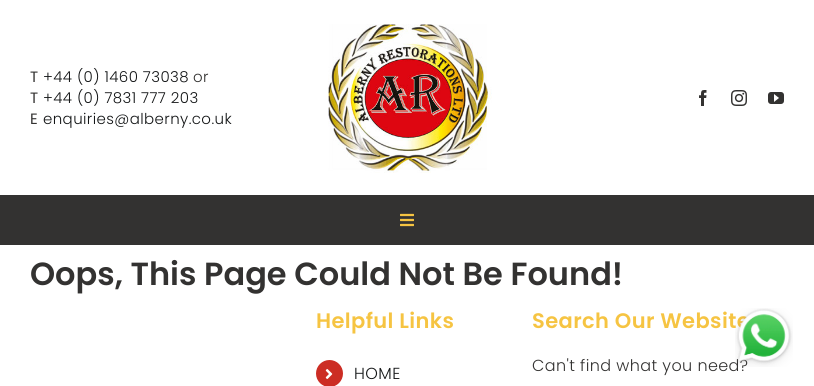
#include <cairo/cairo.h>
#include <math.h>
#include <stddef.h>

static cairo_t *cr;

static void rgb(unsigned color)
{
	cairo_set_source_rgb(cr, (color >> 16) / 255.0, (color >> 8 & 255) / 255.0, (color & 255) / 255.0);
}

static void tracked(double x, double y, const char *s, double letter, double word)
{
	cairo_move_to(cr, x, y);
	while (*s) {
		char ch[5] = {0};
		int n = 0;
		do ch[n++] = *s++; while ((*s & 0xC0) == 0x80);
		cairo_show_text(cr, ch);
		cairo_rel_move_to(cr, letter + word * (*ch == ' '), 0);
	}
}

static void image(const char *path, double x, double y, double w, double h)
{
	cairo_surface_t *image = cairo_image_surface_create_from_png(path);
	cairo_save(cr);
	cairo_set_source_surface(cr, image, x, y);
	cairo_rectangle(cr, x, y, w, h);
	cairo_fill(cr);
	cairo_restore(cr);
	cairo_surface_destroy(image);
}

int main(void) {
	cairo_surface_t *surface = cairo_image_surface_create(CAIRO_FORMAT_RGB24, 814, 386);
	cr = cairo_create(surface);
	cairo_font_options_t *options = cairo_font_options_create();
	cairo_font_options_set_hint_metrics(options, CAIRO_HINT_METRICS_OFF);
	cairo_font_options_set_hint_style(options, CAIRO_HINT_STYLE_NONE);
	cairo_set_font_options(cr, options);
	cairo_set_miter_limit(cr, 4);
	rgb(0xffffff);
	cairo_paint(cr);
	image("img/1.png", 328, 24, 164, 149);
	image("img/2.png", 699, 90, 8, 16);
	image("img/3.png", 731, 90, 16, 16);
	image("img/4.png", 768, 92, 16, 12);
	rgb(0x333231);
	cairo_rectangle(cr, 0, 195, 814, 50);
	cairo_fill(cr);
	image("img/5.png", 400, 213, 14, 14);
	rgb(0xcc2d24);
	cairo_arc(cr, 329.5, 373.5, 13.5, 0, 2 * M_PI);
	cairo_fill(cr);
	image("img/6.png", 325, 369, 8, 10);
	cairo_select_font_face(cr, "Poppins", CAIRO_FONT_SLANT_NORMAL, CAIRO_FONT_WEIGHT_NORMAL);
	cairo_set_font_size(cr, 15);
	rgb(0x333231);
	tracked(30, 82, "T", 0.4, 0);
	cairo_select_font_face(cr, "Poppins Light", CAIRO_FONT_SLANT_NORMAL, CAIRO_FONT_WEIGHT_NORMAL);
	rgb(0x141617);
	tracked(43, 82, "+44 (0) 1460 73038", 0.4, 0);
	rgb(0x333231);
	tracked(193, 82, "or", 0.4, 0);
	cairo_select_font_face(cr, "Poppins", CAIRO_FONT_SLANT_NORMAL, CAIRO_FONT_WEIGHT_NORMAL);
	tracked(30, 103, "T", 0.4, 0);
	cairo_select_font_face(cr, "Poppins Light", CAIRO_FONT_SLANT_NORMAL, CAIRO_FONT_WEIGHT_NORMAL);
	rgb(0x141617);
	tracked(43, 103, "+44 (0) 7831 777 203", 0.4, 0);
	cairo_select_font_face(cr, "Poppins", CAIRO_FONT_SLANT_NORMAL, CAIRO_FONT_WEIGHT_NORMAL);
	rgb(0x333231);
	tracked(30, 124, "E", 0.4, 0);
	cairo_select_font_face(cr, "Poppins Light", CAIRO_FONT_SLANT_NORMAL, CAIRO_FONT_WEIGHT_NORMAL);
	rgb(0x141617);
	tracked(43, 124, "enquiries@alberny.co.uk", 0.4, 0);
	cairo_select_font_face(cr, "Poppins SemiBold", CAIRO_FONT_SLANT_NORMAL, CAIRO_FONT_WEIGHT_NORMAL);
	cairo_set_font_size(cr, 32);
	rgb(0x333231);
	cairo_move_to(cr, 30, 285);
	cairo_show_text(cr, "Oops, This Page Could Not Be Found!");
	cairo_set_font_size(cr, 21);
	rgb(0xf6c442);
	tracked(316, 328, "Helpful Links", 0.4, 0);
	cairo_select_font_face(cr, "Poppins Light", CAIRO_FONT_SLANT_NORMAL, CAIRO_FONT_WEIGHT_NORMAL);
	cairo_set_font_size(cr, 16);
	rgb(0x141617);
	tracked(354, 379, "HOME", 0.4, 0);
	cairo_select_font_face(cr, "Poppins SemiBold", CAIRO_FONT_SLANT_NORMAL, CAIRO_FONT_WEIGHT_NORMAL);
	cairo_set_font_size(cr, 21);
	rgb(0xf6c442);
	tracked(532, 328, "Search Our Website", 0.4, 0);
	cairo_select_font_face(cr, "Poppins Light", CAIRO_FONT_SLANT_NORMAL, CAIRO_FONT_WEIGHT_NORMAL);
	cairo_set_font_size(cr, 16);
	rgb(0x333231);
	tracked(532, 371, "Can't find what you need?", 0.4, 0);
	image("img/7.png", 735, 308, 58, 59);
	cairo_surface_write_to_png(surface, "page.png");
	cairo_font_options_destroy(options);
	cairo_destroy(cr);
	cairo_surface_destroy(surface);
	return 0;
}
